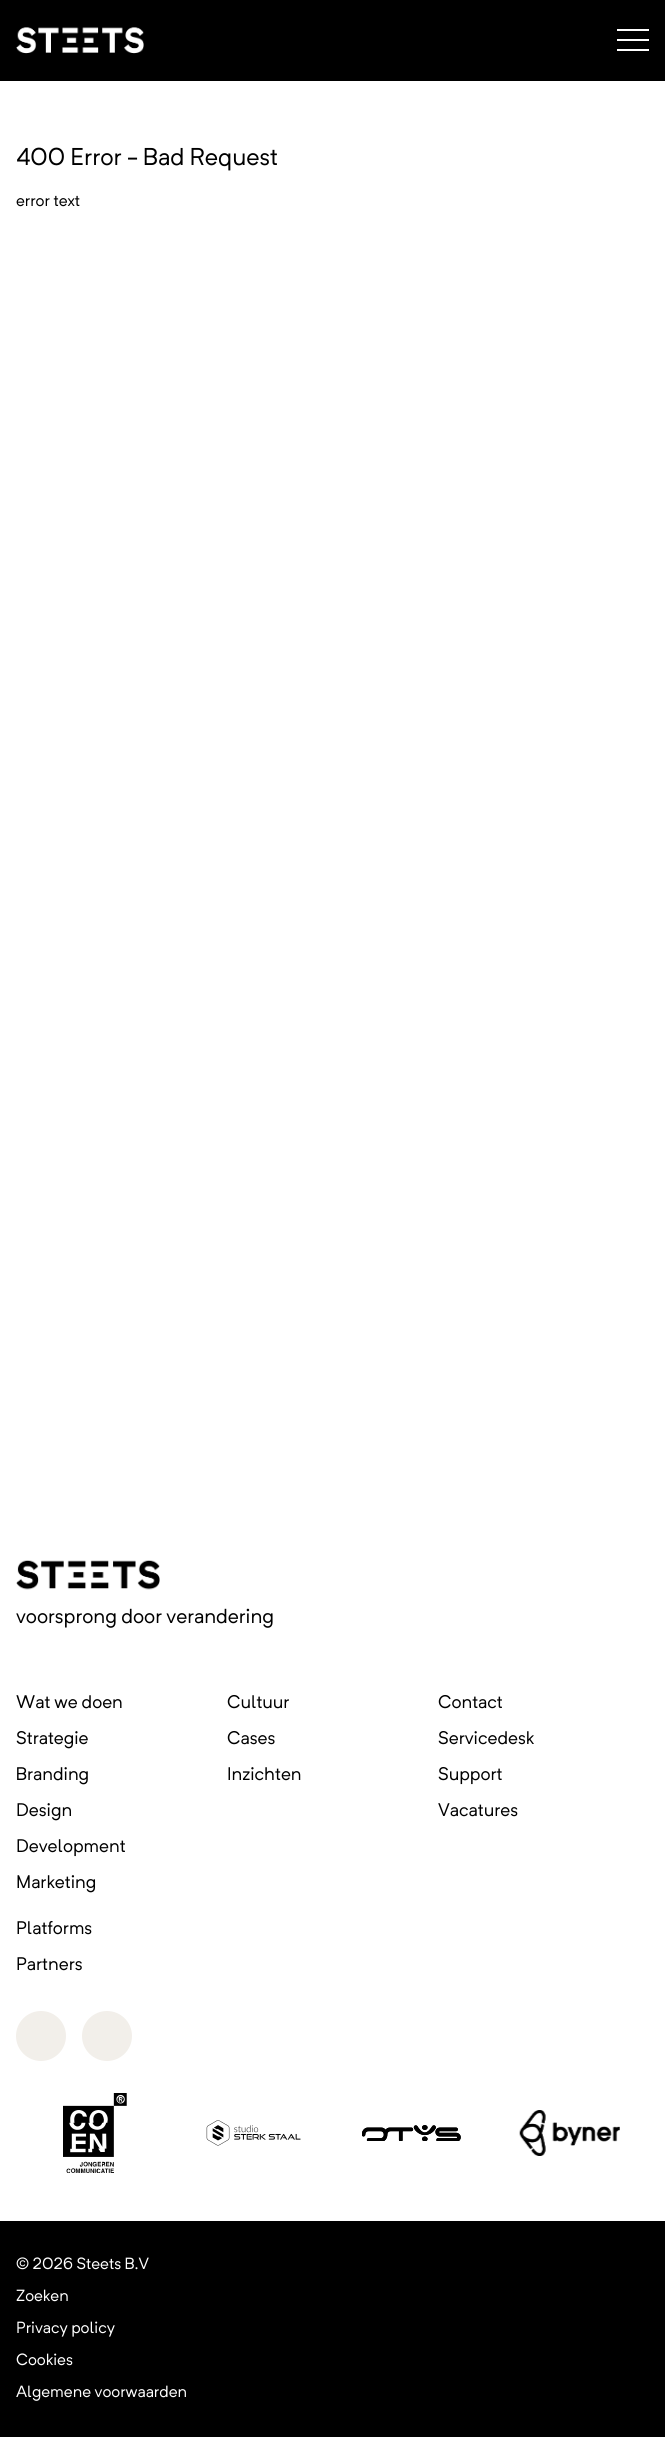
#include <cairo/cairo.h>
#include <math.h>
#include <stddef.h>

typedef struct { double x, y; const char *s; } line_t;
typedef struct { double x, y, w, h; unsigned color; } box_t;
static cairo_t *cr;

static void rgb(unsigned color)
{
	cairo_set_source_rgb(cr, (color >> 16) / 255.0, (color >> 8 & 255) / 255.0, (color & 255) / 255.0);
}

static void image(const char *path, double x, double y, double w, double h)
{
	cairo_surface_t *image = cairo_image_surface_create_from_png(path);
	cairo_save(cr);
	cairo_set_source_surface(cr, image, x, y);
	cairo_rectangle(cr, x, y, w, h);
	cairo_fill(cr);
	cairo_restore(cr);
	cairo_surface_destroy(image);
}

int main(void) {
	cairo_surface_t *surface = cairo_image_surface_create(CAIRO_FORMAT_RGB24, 665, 2437);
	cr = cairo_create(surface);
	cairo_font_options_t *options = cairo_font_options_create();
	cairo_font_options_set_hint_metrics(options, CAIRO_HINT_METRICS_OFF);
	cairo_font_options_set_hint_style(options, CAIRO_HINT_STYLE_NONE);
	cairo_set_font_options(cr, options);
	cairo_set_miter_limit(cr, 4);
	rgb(0xffffff);
	cairo_paint(cr);
	rgb(0x000000);
	cairo_rectangle(cr, 0, 0, 665, 81);
	cairo_fill(cr);
	image("img/1.png", 16, 27, 128, 27);
	{
		static const box_t items[] = {
			{617, 39, 32, 2, 0xffffff},
			{617, 29, 32, 2, 0xffffff},
			{617, 49, 32, 2, 0xffffff},
		};
		for (size_t i = 0; i < sizeof items / sizeof *items; i++) {
			rgb(items[i].color);
			cairo_rectangle(cr, items[i].x, items[i].y, items[i].w, items[i].h);
			cairo_fill(cr);
		}
	}
	image("img/2.png", 16, 1560, 144, 30);
	rgb(0xf2efea);
	cairo_arc(cr, 41, 2036, 25, 0, 2 * M_PI);
	cairo_fill(cr);
	cairo_arc(cr, 107, 2036, 25, 0, 2 * M_PI);
	cairo_fill(cr);
	image("img/3.png", 63, 2093, 64, 80);
	image("img/4.png", 206, 2120, 95, 26);
	image("img/5.png", 362, 2125, 99, 16);
	image("img/6.png", 519, 2110, 101, 46);
	rgb(0x000000);
	cairo_rectangle(cr, 0, 2221, 665, 216);
	cairo_fill(cr);
	cairo_select_font_face(cr, "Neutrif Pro", CAIRO_FONT_SLANT_NORMAL, CAIRO_FONT_WEIGHT_NORMAL);
	cairo_set_font_size(cr, 24);
	cairo_move_to(cr, 16, 165);
	cairo_show_text(cr, "400 Error - Bad Request");
	cairo_set_font_size(cr, 16);
	cairo_move_to(cr, 16, 206);
	cairo_show_text(cr, "error text");
	cairo_set_font_size(cr, 20);
	cairo_move_to(cr, 16, 1623);
	cairo_show_text(cr, "voorsprong door verandering");
	cairo_set_font_size(cr, 18);
	{
		static const line_t items[] = {
			{16, 1708, "Wat we doen"},
			{16, 1744, "Strategie"},
			{16, 1780, "Branding"},
			{16, 1816, "Design"},
			{16, 1852, "Development"},
			{16, 1888, "Marketing"},
			{227, 1708, "Cultuur"},
			{227, 1744, "Cases"},
			{227, 1780, "Inzichten"},
			{438, 1708, "Contact"},
			{438, 1744, "Servicedesk"},
			{438, 1780, "Support"},
			{438, 1816, "Vacatures"},
			{16, 1934, "Platforms"},
			{16, 1970, "Partners"},
		};
		for (size_t i = 0; i < sizeof items / sizeof *items; i++) {
			cairo_move_to(cr, items[i].x, items[i].y);
			cairo_show_text(cr, items[i].s);
		}
	}
	cairo_set_font_size(cr, 16);
	rgb(0xffffff);
	{
		static const line_t items[] = {
			{16, 2269, "© 2026 Steets B.V"},
			{16, 2301, "Zoeken"},
			{16, 2333, "Privacy policy"},
			{16, 2365, "Cookies"},
			{16, 2397, "Algemene voorwaarden"},
		};
		for (size_t i = 0; i < sizeof items / sizeof *items; i++) {
			cairo_move_to(cr, items[i].x, items[i].y);
			cairo_show_text(cr, items[i].s);
		}
	}
	cairo_surface_write_to_png(surface, "page.png");
	cairo_font_options_destroy(options);
	cairo_destroy(cr);
	cairo_surface_destroy(surface);
	return 0;
}
